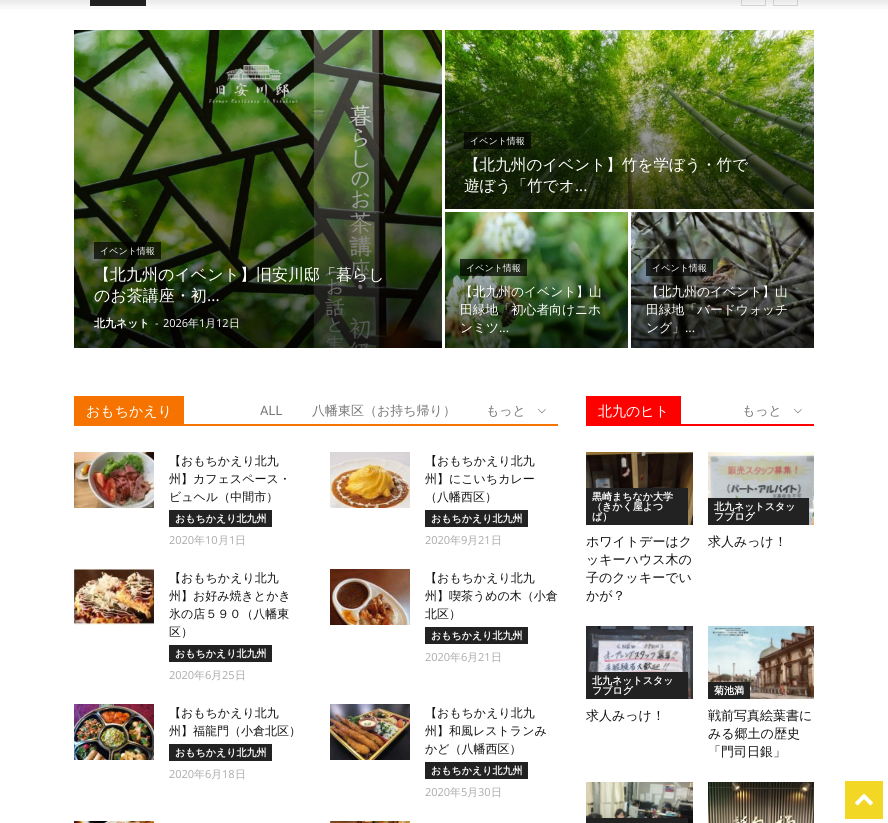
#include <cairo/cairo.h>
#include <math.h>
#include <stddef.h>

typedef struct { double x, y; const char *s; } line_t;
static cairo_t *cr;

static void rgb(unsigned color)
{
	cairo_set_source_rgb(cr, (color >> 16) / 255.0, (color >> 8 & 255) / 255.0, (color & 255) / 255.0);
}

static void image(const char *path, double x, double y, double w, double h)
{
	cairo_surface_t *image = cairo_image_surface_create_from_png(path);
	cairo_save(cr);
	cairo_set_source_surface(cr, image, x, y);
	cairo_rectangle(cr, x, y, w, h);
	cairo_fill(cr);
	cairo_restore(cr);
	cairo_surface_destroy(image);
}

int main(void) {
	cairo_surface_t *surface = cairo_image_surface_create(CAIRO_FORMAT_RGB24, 888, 823);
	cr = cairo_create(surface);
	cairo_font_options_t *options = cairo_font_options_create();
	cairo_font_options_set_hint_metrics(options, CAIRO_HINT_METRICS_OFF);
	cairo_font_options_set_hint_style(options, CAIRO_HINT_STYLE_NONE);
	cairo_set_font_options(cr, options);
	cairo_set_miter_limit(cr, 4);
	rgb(0xffffff);
	cairo_paint(cr);
	rgb(0x222222);
	cairo_rectangle(cr, 90, 0, 56, 6);
	cairo_fill(cr);
	cairo_rectangle(cr, 741.5, -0.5, 24, 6);
	rgb(0xdcdcdc);
	cairo_set_line_width(cr, 1);
	cairo_stroke(cr);
	cairo_rectangle(cr, 773.5, -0.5, 24, 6);
	cairo_stroke(cr);
	image("img/1.png", 0, 0, 888, 9);
	image("img/2.png", 74, 30, 368, 318);
	cairo_set_source_rgba(cr, 0, 0, 0, 0.7);
	cairo_rectangle(cr, 94, 242, 67, 17);
	cairo_fill(cr);
	image("img/3.png", 445, 30, 369, 179);
	cairo_rectangle(cr, 464, 132, 67, 17);
	cairo_fill(cr);
	image("img/4.png", 445, 212, 183, 136);
	cairo_rectangle(cr, 460, 259, 67, 17);
	cairo_fill(cr);
	image("img/5.png", 631, 212, 183, 136);
	cairo_rectangle(cr, 646, 259, 67, 17);
	cairo_fill(cr);
	rgb(0xf77300);
	cairo_rectangle(cr, 74, 424, 484, 2);
	cairo_fill(cr);
	cairo_rectangle(cr, 74, 396, 110, 28);
	cairo_fill(cr);
	image("img/6.png", 538, 409, 8, 5);
	image("img/7.png", 74, 452, 80, 56);
	rgb(0x222222);
	cairo_rectangle(cr, 169, 510, 103, 17);
	cairo_fill(cr);
	image("img/8.png", 330, 452, 80, 56);
	cairo_rectangle(cr, 425, 510, 103, 17);
	cairo_fill(cr);
	image("img/9.png", 74, 569, 80, 56);
	cairo_rectangle(cr, 169, 645, 103, 17);
	cairo_fill(cr);
	image("img/10.png", 330, 569, 80, 56);
	cairo_rectangle(cr, 425, 627, 103, 17);
	cairo_fill(cr);
	image("img/11.png", 74, 704, 80, 56);
	cairo_rectangle(cr, 169, 744, 103, 17);
	cairo_fill(cr);
	image("img/12.png", 330, 704, 80, 56);
	cairo_rectangle(cr, 425, 762, 103, 17);
	cairo_fill(cr);
	image("img/13.png", 74, 821, 80, 2);
	image("img/14.png", 330, 821, 80, 2);
	rgb(0xff0000);
	cairo_rectangle(cr, 586, 424, 228, 2);
	cairo_fill(cr);
	cairo_rectangle(cr, 586, 396, 95, 28);
	cairo_fill(cr);
	image("img/6.png", 794, 409, 8, 5);
	image("img/15.png", 586, 452, 107, 73);
	rgb(0x222222);
	cairo_rectangle(cr, 586, 488, 102, 37);
	cairo_fill(cr);
	image("img/16.png", 708, 452, 106, 73);
	cairo_rectangle(cr, 708, 498, 101, 27);
	cairo_fill(cr);
	image("img/17.png", 586, 626, 107, 73);
	cairo_rectangle(cr, 586, 672, 102, 27);
	cairo_fill(cr);
	image("img/18.png", 708, 626, 106, 73);
	cairo_rectangle(cr, 708, 682, 42, 17);
	cairo_fill(cr);
	image("img/19.png", 586, 782, 107, 41);
	cairo_rectangle(cr, 586, 818, 102, 5);
	cairo_fill(cr);
	image("img/20.png", 708, 782, 106, 41);
	rgb(0xf2d825);
	cairo_rectangle(cr, 845, 781, 38, 38);
	cairo_fill(cr);
	image("img/21.png", 855, 793, 18, 13);
	cairo_select_font_face(cr, "WenQuanYi Zen Hei Medium", CAIRO_FONT_SLANT_NORMAL, CAIRO_FONT_WEIGHT_NORMAL);
	cairo_set_font_size(cr, 9);
	rgb(0xffffff);
	cairo_move_to(cr, 100, 254);
	cairo_show_text(cr, "イベント情報");
	cairo_set_font_size(cr, 16);
	cairo_move_to(cr, 94, 280);
	cairo_show_text(cr, "【北九州のイベント】旧安川邸「暮らし");
	cairo_move_to(cr, 94, 301);
	cairo_show_text(cr, "のお茶講座・初");
	cairo_select_font_face(cr, "Open Sans", CAIRO_FONT_SLANT_NORMAL, CAIRO_FONT_WEIGHT_NORMAL);
	cairo_move_to(cr, 207, 301);
	cairo_show_text(cr, "...");
	cairo_select_font_face(cr, "WenQuanYi Zen Hei", CAIRO_FONT_SLANT_NORMAL, CAIRO_FONT_WEIGHT_BOLD);
	cairo_set_font_size(cr, 11);
	cairo_move_to(cr, 94, 327);
	cairo_show_text(cr, "北九ネット");
	cairo_select_font_face(cr, "Open Sans", CAIRO_FONT_SLANT_NORMAL, CAIRO_FONT_WEIGHT_NORMAL);
	cairo_move_to(cr, 155, 327);
	cairo_show_text(cr, "-");
	cairo_move_to(cr, 163, 327);
	cairo_show_text(cr, "2026");
	cairo_select_font_face(cr, "WenQuanYi Zen Hei Medium", CAIRO_FONT_SLANT_NORMAL, CAIRO_FONT_WEIGHT_NORMAL);
	cairo_move_to(cr, 188, 327);
	cairo_show_text(cr, "年");
	cairo_select_font_face(cr, "Open Sans", CAIRO_FONT_SLANT_NORMAL, CAIRO_FONT_WEIGHT_NORMAL);
	cairo_move_to(cr, 199, 327);
	cairo_show_text(cr, "1");
	cairo_select_font_face(cr, "WenQuanYi Zen Hei Medium", CAIRO_FONT_SLANT_NORMAL, CAIRO_FONT_WEIGHT_NORMAL);
	cairo_move_to(cr, 205, 327);
	cairo_show_text(cr, "月");
	cairo_select_font_face(cr, "Open Sans", CAIRO_FONT_SLANT_NORMAL, CAIRO_FONT_WEIGHT_NORMAL);
	cairo_move_to(cr, 216, 327);
	cairo_show_text(cr, "12");
	cairo_select_font_face(cr, "WenQuanYi Zen Hei Medium", CAIRO_FONT_SLANT_NORMAL, CAIRO_FONT_WEIGHT_NORMAL);
	cairo_move_to(cr, 229, 327);
	cairo_show_text(cr, "日");
	cairo_set_font_size(cr, 9);
	cairo_move_to(cr, 470, 144);
	cairo_show_text(cr, "イベント情報");
	cairo_set_font_size(cr, 15.6);
	cairo_move_to(cr, 464, 170);
	cairo_show_text(cr, "【北九州のイベント】竹を学ぼう・竹で");
	cairo_move_to(cr, 464, 191);
	cairo_show_text(cr, "遊ぼう「竹でオ");
	cairo_select_font_face(cr, "Open Sans", CAIRO_FONT_SLANT_NORMAL, CAIRO_FONT_WEIGHT_NORMAL);
	cairo_move_to(cr, 575, 191);
	cairo_show_text(cr, "...");
	cairo_select_font_face(cr, "WenQuanYi Zen Hei Medium", CAIRO_FONT_SLANT_NORMAL, CAIRO_FONT_WEIGHT_NORMAL);
	cairo_set_font_size(cr, 9);
	cairo_move_to(cr, 466, 271);
	cairo_show_text(cr, "イベント情報");
	cairo_set_font_size(cr, 12.75);
	{
		static const line_t items[] = {
			{460, 296, "【北九州のイベント】山"},
			{460, 314, "田緑地「初心者向けニホ"},
			{460, 332, "ンミツ"},
		};
		for (size_t i = 0; i < sizeof items / sizeof *items; i++) {
			cairo_move_to(cr, items[i].x, items[i].y);
			cairo_show_text(cr, items[i].s);
		}
	}
	cairo_select_font_face(cr, "Open Sans", CAIRO_FONT_SLANT_NORMAL, CAIRO_FONT_WEIGHT_NORMAL);
	cairo_move_to(cr, 499, 332);
	cairo_show_text(cr, "...");
	cairo_select_font_face(cr, "WenQuanYi Zen Hei Medium", CAIRO_FONT_SLANT_NORMAL, CAIRO_FONT_WEIGHT_NORMAL);
	cairo_set_font_size(cr, 9);
	cairo_move_to(cr, 652, 271);
	cairo_show_text(cr, "イベント情報");
	cairo_set_font_size(cr, 12.75);
	{
		static const line_t items[] = {
			{646, 296, "【北九州のイベント】山"},
			{646, 314, "田緑地「バードウォッチ"},
			{646, 332, "ング」"},
		};
		for (size_t i = 0; i < sizeof items / sizeof *items; i++) {
			cairo_move_to(cr, items[i].x, items[i].y);
			cairo_show_text(cr, items[i].s);
		}
	}
	cairo_select_font_face(cr, "Open Sans", CAIRO_FONT_SLANT_NORMAL, CAIRO_FONT_WEIGHT_NORMAL);
	cairo_move_to(cr, 685, 332);
	cairo_show_text(cr, "...");
	cairo_select_font_face(cr, "WenQuanYi Zen Hei Medium", CAIRO_FONT_SLANT_NORMAL, CAIRO_FONT_WEIGHT_NORMAL);
	cairo_set_font_size(cr, 14);
	cairo_move_to(cr, 86, 416);
	cairo_show_text(cr, "おもちかえり");
	cairo_select_font_face(cr, "Roboto", CAIRO_FONT_SLANT_NORMAL, CAIRO_FONT_WEIGHT_NORMAL);
	cairo_set_font_size(cr, 13);
	rgb(0x777777);
	cairo_move_to(cr, 260, 415);
	cairo_show_text(cr, "ALL");
	cairo_select_font_face(cr, "WenQuanYi Zen Hei Medium", CAIRO_FONT_SLANT_NORMAL, CAIRO_FONT_WEIGHT_NORMAL);
	cairo_move_to(cr, 312, 415);
	cairo_show_text(cr, "八幡東区（お持ち帰り）");
	cairo_move_to(cr, 486, 415);
	cairo_show_text(cr, "もっと");
	cairo_set_font_size(cr, 12);
	rgb(0x111111);
	{
		static const line_t items[] = {
			{169, 465, "【おもちかえり北九"},
			{169, 483, "州】カフェスペース・"},
			{169, 501, "ビュヘル（中間市）"},
		};
		for (size_t i = 0; i < sizeof items / sizeof *items; i++) {
			cairo_move_to(cr, items[i].x, items[i].y);
			cairo_show_text(cr, items[i].s);
		}
	}
	cairo_select_font_face(cr, "WenQuanYi Zen Hei", CAIRO_FONT_SLANT_NORMAL, CAIRO_FONT_WEIGHT_BOLD);
	cairo_set_font_size(cr, 10);
	rgb(0xffffff);
	cairo_move_to(cr, 175, 522);
	cairo_show_text(cr, "おもちかえり北九州");
	cairo_select_font_face(cr, "Open Sans", CAIRO_FONT_SLANT_NORMAL, CAIRO_FONT_WEIGHT_NORMAL);
	cairo_set_font_size(cr, 11);
	rgb(0xaaaaaa);
	cairo_move_to(cr, 169, 544);
	cairo_show_text(cr, "2020");
	cairo_select_font_face(cr, "WenQuanYi Zen Hei Medium", CAIRO_FONT_SLANT_NORMAL, CAIRO_FONT_WEIGHT_NORMAL);
	cairo_move_to(cr, 194, 544);
	cairo_show_text(cr, "年");
	cairo_select_font_face(cr, "Open Sans", CAIRO_FONT_SLANT_NORMAL, CAIRO_FONT_WEIGHT_NORMAL);
	cairo_move_to(cr, 205, 544);
	cairo_show_text(cr, "10");
	cairo_select_font_face(cr, "WenQuanYi Zen Hei Medium", CAIRO_FONT_SLANT_NORMAL, CAIRO_FONT_WEIGHT_NORMAL);
	cairo_move_to(cr, 218, 544);
	cairo_show_text(cr, "月");
	cairo_select_font_face(cr, "Open Sans", CAIRO_FONT_SLANT_NORMAL, CAIRO_FONT_WEIGHT_NORMAL);
	cairo_move_to(cr, 229, 544);
	cairo_show_text(cr, "1");
	cairo_select_font_face(cr, "WenQuanYi Zen Hei Medium", CAIRO_FONT_SLANT_NORMAL, CAIRO_FONT_WEIGHT_NORMAL);
	cairo_move_to(cr, 235, 544);
	cairo_show_text(cr, "日");
	cairo_set_font_size(cr, 12);
	rgb(0x111111);
	{
		static const line_t items[] = {
			{425, 465, "【おもちかえり北九"},
			{425, 483, "州】にこいちカレー"},
			{425, 501, "（八幡西区）"},
		};
		for (size_t i = 0; i < sizeof items / sizeof *items; i++) {
			cairo_move_to(cr, items[i].x, items[i].y);
			cairo_show_text(cr, items[i].s);
		}
	}
	cairo_select_font_face(cr, "WenQuanYi Zen Hei", CAIRO_FONT_SLANT_NORMAL, CAIRO_FONT_WEIGHT_BOLD);
	cairo_set_font_size(cr, 10);
	rgb(0xffffff);
	cairo_move_to(cr, 431, 522);
	cairo_show_text(cr, "おもちかえり北九州");
	cairo_select_font_face(cr, "Open Sans", CAIRO_FONT_SLANT_NORMAL, CAIRO_FONT_WEIGHT_NORMAL);
	cairo_set_font_size(cr, 11);
	rgb(0xaaaaaa);
	cairo_move_to(cr, 425, 544);
	cairo_show_text(cr, "2020");
	cairo_select_font_face(cr, "WenQuanYi Zen Hei Medium", CAIRO_FONT_SLANT_NORMAL, CAIRO_FONT_WEIGHT_NORMAL);
	cairo_move_to(cr, 450, 544);
	cairo_show_text(cr, "年");
	cairo_select_font_face(cr, "Open Sans", CAIRO_FONT_SLANT_NORMAL, CAIRO_FONT_WEIGHT_NORMAL);
	cairo_move_to(cr, 461, 544);
	cairo_show_text(cr, "9");
	cairo_select_font_face(cr, "WenQuanYi Zen Hei Medium", CAIRO_FONT_SLANT_NORMAL, CAIRO_FONT_WEIGHT_NORMAL);
	cairo_move_to(cr, 467, 544);
	cairo_show_text(cr, "月");
	cairo_select_font_face(cr, "Open Sans", CAIRO_FONT_SLANT_NORMAL, CAIRO_FONT_WEIGHT_NORMAL);
	cairo_move_to(cr, 478, 544);
	cairo_show_text(cr, "21");
	cairo_select_font_face(cr, "WenQuanYi Zen Hei Medium", CAIRO_FONT_SLANT_NORMAL, CAIRO_FONT_WEIGHT_NORMAL);
	cairo_move_to(cr, 491, 544);
	cairo_show_text(cr, "日");
	cairo_set_font_size(cr, 12);
	rgb(0x111111);
	{
		static const line_t items[] = {
			{169, 582, "【おもちかえり北九"},
			{169, 600, "州】お好み焼きとかき"},
			{169, 618, "氷の店５９０（八幡東"},
			{169, 636, "区）"},
		};
		for (size_t i = 0; i < sizeof items / sizeof *items; i++) {
			cairo_move_to(cr, items[i].x, items[i].y);
			cairo_show_text(cr, items[i].s);
		}
	}
	cairo_select_font_face(cr, "WenQuanYi Zen Hei", CAIRO_FONT_SLANT_NORMAL, CAIRO_FONT_WEIGHT_BOLD);
	cairo_set_font_size(cr, 10);
	rgb(0xffffff);
	cairo_move_to(cr, 175, 657);
	cairo_show_text(cr, "おもちかえり北九州");
	cairo_select_font_face(cr, "Open Sans", CAIRO_FONT_SLANT_NORMAL, CAIRO_FONT_WEIGHT_NORMAL);
	cairo_set_font_size(cr, 11);
	rgb(0xaaaaaa);
	cairo_move_to(cr, 169, 679);
	cairo_show_text(cr, "2020");
	cairo_select_font_face(cr, "WenQuanYi Zen Hei Medium", CAIRO_FONT_SLANT_NORMAL, CAIRO_FONT_WEIGHT_NORMAL);
	cairo_move_to(cr, 194, 679);
	cairo_show_text(cr, "年");
	cairo_select_font_face(cr, "Open Sans", CAIRO_FONT_SLANT_NORMAL, CAIRO_FONT_WEIGHT_NORMAL);
	cairo_move_to(cr, 205, 679);
	cairo_show_text(cr, "6");
	cairo_select_font_face(cr, "WenQuanYi Zen Hei Medium", CAIRO_FONT_SLANT_NORMAL, CAIRO_FONT_WEIGHT_NORMAL);
	cairo_move_to(cr, 211, 679);
	cairo_show_text(cr, "月");
	cairo_select_font_face(cr, "Open Sans", CAIRO_FONT_SLANT_NORMAL, CAIRO_FONT_WEIGHT_NORMAL);
	cairo_move_to(cr, 222, 679);
	cairo_show_text(cr, "25");
	cairo_select_font_face(cr, "WenQuanYi Zen Hei Medium", CAIRO_FONT_SLANT_NORMAL, CAIRO_FONT_WEIGHT_NORMAL);
	cairo_move_to(cr, 235, 679);
	cairo_show_text(cr, "日");
	cairo_set_font_size(cr, 12);
	rgb(0x111111);
	{
		static const line_t items[] = {
			{425, 582, "【おもちかえり北九"},
			{425, 600, "州】喫茶うめの木（小倉"},
			{425, 618, "北区）"},
		};
		for (size_t i = 0; i < sizeof items / sizeof *items; i++) {
			cairo_move_to(cr, items[i].x, items[i].y);
			cairo_show_text(cr, items[i].s);
		}
	}
	cairo_select_font_face(cr, "WenQuanYi Zen Hei", CAIRO_FONT_SLANT_NORMAL, CAIRO_FONT_WEIGHT_BOLD);
	cairo_set_font_size(cr, 10);
	rgb(0xffffff);
	cairo_move_to(cr, 431, 639);
	cairo_show_text(cr, "おもちかえり北九州");
	cairo_select_font_face(cr, "Open Sans", CAIRO_FONT_SLANT_NORMAL, CAIRO_FONT_WEIGHT_NORMAL);
	cairo_set_font_size(cr, 11);
	rgb(0xaaaaaa);
	cairo_move_to(cr, 425, 661);
	cairo_show_text(cr, "2020");
	cairo_select_font_face(cr, "WenQuanYi Zen Hei Medium", CAIRO_FONT_SLANT_NORMAL, CAIRO_FONT_WEIGHT_NORMAL);
	cairo_move_to(cr, 450, 661);
	cairo_show_text(cr, "年");
	cairo_select_font_face(cr, "Open Sans", CAIRO_FONT_SLANT_NORMAL, CAIRO_FONT_WEIGHT_NORMAL);
	cairo_move_to(cr, 461, 661);
	cairo_show_text(cr, "6");
	cairo_select_font_face(cr, "WenQuanYi Zen Hei Medium", CAIRO_FONT_SLANT_NORMAL, CAIRO_FONT_WEIGHT_NORMAL);
	cairo_move_to(cr, 467, 661);
	cairo_show_text(cr, "月");
	cairo_select_font_face(cr, "Open Sans", CAIRO_FONT_SLANT_NORMAL, CAIRO_FONT_WEIGHT_NORMAL);
	cairo_move_to(cr, 478, 661);
	cairo_show_text(cr, "21");
	cairo_select_font_face(cr, "WenQuanYi Zen Hei Medium", CAIRO_FONT_SLANT_NORMAL, CAIRO_FONT_WEIGHT_NORMAL);
	cairo_move_to(cr, 491, 661);
	cairo_show_text(cr, "日");
	cairo_set_font_size(cr, 12);
	rgb(0x111111);
	cairo_move_to(cr, 169, 717);
	cairo_show_text(cr, "【おもちかえり北九");
	cairo_move_to(cr, 169, 735);
	cairo_show_text(cr, "州】福龍門（小倉北区）");
	cairo_select_font_face(cr, "WenQuanYi Zen Hei", CAIRO_FONT_SLANT_NORMAL, CAIRO_FONT_WEIGHT_BOLD);
	cairo_set_font_size(cr, 10);
	rgb(0xffffff);
	cairo_move_to(cr, 175, 756);
	cairo_show_text(cr, "おもちかえり北九州");
	cairo_select_font_face(cr, "Open Sans", CAIRO_FONT_SLANT_NORMAL, CAIRO_FONT_WEIGHT_NORMAL);
	cairo_set_font_size(cr, 11);
	rgb(0xaaaaaa);
	cairo_move_to(cr, 169, 778);
	cairo_show_text(cr, "2020");
	cairo_select_font_face(cr, "WenQuanYi Zen Hei Medium", CAIRO_FONT_SLANT_NORMAL, CAIRO_FONT_WEIGHT_NORMAL);
	cairo_move_to(cr, 194, 778);
	cairo_show_text(cr, "年");
	cairo_select_font_face(cr, "Open Sans", CAIRO_FONT_SLANT_NORMAL, CAIRO_FONT_WEIGHT_NORMAL);
	cairo_move_to(cr, 205, 778);
	cairo_show_text(cr, "6");
	cairo_select_font_face(cr, "WenQuanYi Zen Hei Medium", CAIRO_FONT_SLANT_NORMAL, CAIRO_FONT_WEIGHT_NORMAL);
	cairo_move_to(cr, 211, 778);
	cairo_show_text(cr, "月");
	cairo_select_font_face(cr, "Open Sans", CAIRO_FONT_SLANT_NORMAL, CAIRO_FONT_WEIGHT_NORMAL);
	cairo_move_to(cr, 222, 778);
	cairo_show_text(cr, "18");
	cairo_select_font_face(cr, "WenQuanYi Zen Hei Medium", CAIRO_FONT_SLANT_NORMAL, CAIRO_FONT_WEIGHT_NORMAL);
	cairo_move_to(cr, 235, 778);
	cairo_show_text(cr, "日");
	cairo_set_font_size(cr, 12);
	rgb(0x111111);
	{
		static const line_t items[] = {
			{425, 717, "【おもちかえり北九"},
			{425, 735, "州】和風レストランみ"},
			{425, 753, "かど（八幡西区）"},
		};
		for (size_t i = 0; i < sizeof items / sizeof *items; i++) {
			cairo_move_to(cr, items[i].x, items[i].y);
			cairo_show_text(cr, items[i].s);
		}
	}
	cairo_select_font_face(cr, "WenQuanYi Zen Hei", CAIRO_FONT_SLANT_NORMAL, CAIRO_FONT_WEIGHT_BOLD);
	cairo_set_font_size(cr, 10);
	rgb(0xffffff);
	cairo_move_to(cr, 431, 774);
	cairo_show_text(cr, "おもちかえり北九州");
	cairo_select_font_face(cr, "Open Sans", CAIRO_FONT_SLANT_NORMAL, CAIRO_FONT_WEIGHT_NORMAL);
	cairo_set_font_size(cr, 11);
	rgb(0xaaaaaa);
	cairo_move_to(cr, 425, 796);
	cairo_show_text(cr, "2020");
	cairo_select_font_face(cr, "WenQuanYi Zen Hei Medium", CAIRO_FONT_SLANT_NORMAL, CAIRO_FONT_WEIGHT_NORMAL);
	cairo_move_to(cr, 450, 796);
	cairo_show_text(cr, "年");
	cairo_select_font_face(cr, "Open Sans", CAIRO_FONT_SLANT_NORMAL, CAIRO_FONT_WEIGHT_NORMAL);
	cairo_move_to(cr, 461, 796);
	cairo_show_text(cr, "5");
	cairo_select_font_face(cr, "WenQuanYi Zen Hei Medium", CAIRO_FONT_SLANT_NORMAL, CAIRO_FONT_WEIGHT_NORMAL);
	cairo_move_to(cr, 467, 796);
	cairo_show_text(cr, "月");
	cairo_select_font_face(cr, "Open Sans", CAIRO_FONT_SLANT_NORMAL, CAIRO_FONT_WEIGHT_NORMAL);
	cairo_move_to(cr, 478, 796);
	cairo_show_text(cr, "30");
	cairo_select_font_face(cr, "WenQuanYi Zen Hei Medium", CAIRO_FONT_SLANT_NORMAL, CAIRO_FONT_WEIGHT_NORMAL);
	cairo_move_to(cr, 491, 796);
	cairo_show_text(cr, "日");
	cairo_set_font_size(cr, 14);
	rgb(0xffffff);
	cairo_move_to(cr, 598, 416);
	cairo_show_text(cr, "北九のヒト");
	cairo_set_font_size(cr, 13);
	rgb(0x777777);
	cairo_move_to(cr, 742, 415);
	cairo_show_text(cr, "もっと");
	cairo_select_font_face(cr, "WenQuanYi Zen Hei", CAIRO_FONT_SLANT_NORMAL, CAIRO_FONT_WEIGHT_BOLD);
	cairo_set_font_size(cr, 10);
	rgb(0xffffff);
	{
		static const line_t items[] = {
			{592, 500, "黒崎まちなか大学"},
			{592, 510, "（きかく屋よつ"},
			{592, 520, "ば）"},
		};
		for (size_t i = 0; i < sizeof items / sizeof *items; i++) {
			cairo_move_to(cr, items[i].x, items[i].y);
			cairo_show_text(cr, items[i].s);
		}
	}
	cairo_select_font_face(cr, "WenQuanYi Zen Hei Medium", CAIRO_FONT_SLANT_NORMAL, CAIRO_FONT_WEIGHT_NORMAL);
	cairo_set_font_size(cr, 13);
	rgb(0x111111);
	{
		static const line_t items[] = {
			{586, 546, "ホワイトデーはク"},
			{586, 564, "ッキーハウス木の"},
			{586, 582, "子のクッキーでい"},
			{586, 600, "かが？"},
		};
		for (size_t i = 0; i < sizeof items / sizeof *items; i++) {
			cairo_move_to(cr, items[i].x, items[i].y);
			cairo_show_text(cr, items[i].s);
		}
	}
	cairo_select_font_face(cr, "WenQuanYi Zen Hei", CAIRO_FONT_SLANT_NORMAL, CAIRO_FONT_WEIGHT_BOLD);
	cairo_set_font_size(cr, 10);
	rgb(0xffffff);
	cairo_move_to(cr, 714, 510);
	cairo_show_text(cr, "北九ネットスタッ");
	cairo_move_to(cr, 714, 520);
	cairo_show_text(cr, "フブログ");
	cairo_select_font_face(cr, "WenQuanYi Zen Hei Medium", CAIRO_FONT_SLANT_NORMAL, CAIRO_FONT_WEIGHT_NORMAL);
	cairo_set_font_size(cr, 13);
	rgb(0x111111);
	cairo_move_to(cr, 708, 546);
	cairo_show_text(cr, "求人みっけ！");
	cairo_select_font_face(cr, "WenQuanYi Zen Hei", CAIRO_FONT_SLANT_NORMAL, CAIRO_FONT_WEIGHT_BOLD);
	cairo_set_font_size(cr, 10);
	rgb(0xffffff);
	cairo_move_to(cr, 592, 684);
	cairo_show_text(cr, "北九ネットスタッ");
	cairo_move_to(cr, 592, 694);
	cairo_show_text(cr, "フブログ");
	cairo_select_font_face(cr, "WenQuanYi Zen Hei Medium", CAIRO_FONT_SLANT_NORMAL, CAIRO_FONT_WEIGHT_NORMAL);
	cairo_set_font_size(cr, 13);
	rgb(0x111111);
	cairo_move_to(cr, 586, 720);
	cairo_show_text(cr, "求人みっけ！");
	cairo_select_font_face(cr, "WenQuanYi Zen Hei", CAIRO_FONT_SLANT_NORMAL, CAIRO_FONT_WEIGHT_BOLD);
	cairo_set_font_size(cr, 10);
	rgb(0xffffff);
	cairo_move_to(cr, 714, 694);
	cairo_show_text(cr, "菊池満");
	cairo_select_font_face(cr, "WenQuanYi Zen Hei Medium", CAIRO_FONT_SLANT_NORMAL, CAIRO_FONT_WEIGHT_NORMAL);
	cairo_set_font_size(cr, 13);
	rgb(0x111111);
	{
		static const line_t items[] = {
			{708, 720, "戦前写真絵葉書に"},
			{708, 738, "みる郷土の歴史"},
			{708, 756, "「門司日銀」"},
		};
		for (size_t i = 0; i < sizeof items / sizeof *items; i++) {
			cairo_move_to(cr, items[i].x, items[i].y);
			cairo_show_text(cr, items[i].s);
		}
	}
	cairo_surface_write_to_png(surface, "page.png");
	cairo_font_options_destroy(options);
	cairo_destroy(cr);
	cairo_surface_destroy(surface);
	return 0;
}
